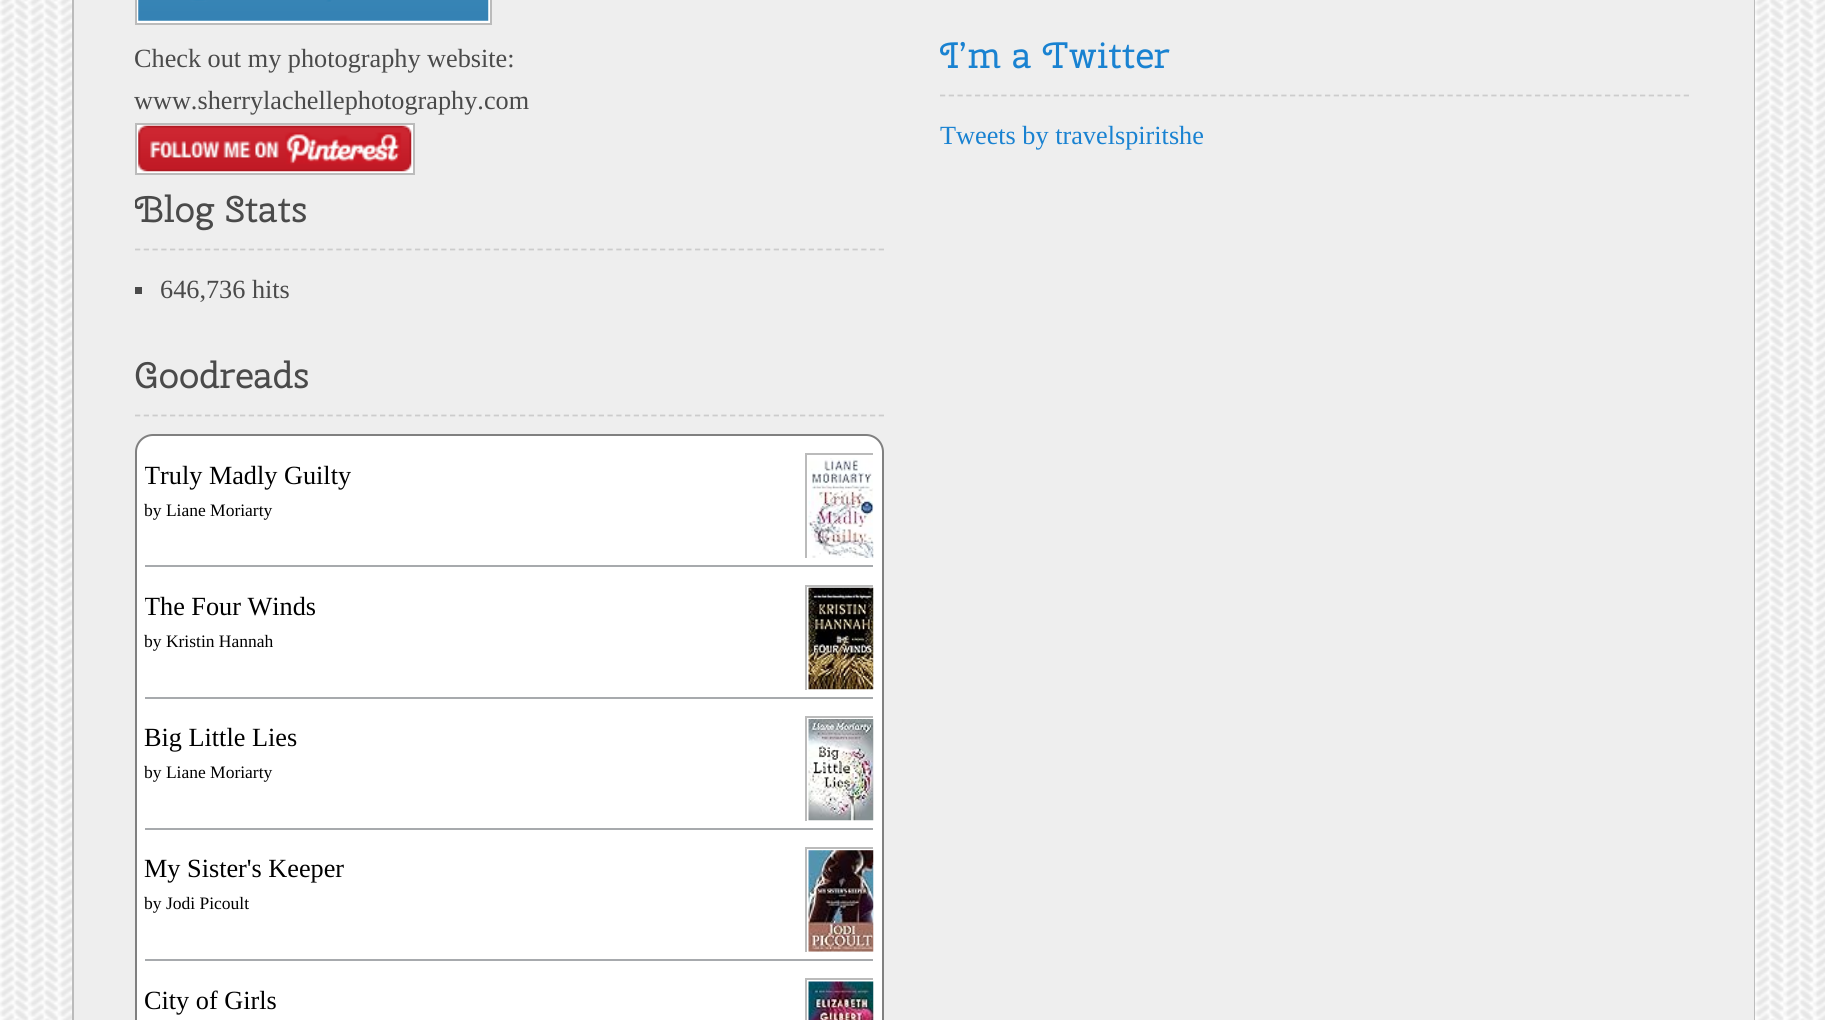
#include <cairo/cairo.h>
#include <math.h>
#include <stddef.h>

static cairo_t *cr;

static void rgb(unsigned color)
{
	cairo_set_source_rgb(cr, (color >> 16) / 255.0, (color >> 8 & 255) / 255.0, (color & 255) / 255.0);
}

static void rrect(double x, double y, double w, double h, double r)
{
	cairo_new_sub_path(cr);
	cairo_arc(cr, x + w - r, y + h - r, r, 0, M_PI / 2);
	cairo_arc(cr, x + r, y + h - r, r, M_PI / 2, M_PI);
	cairo_arc(cr, x + r, y + r, r, M_PI, 1.5 * M_PI);
	cairo_arc(cr, x + w - r, y + r, r, 1.5 * M_PI, 2 * M_PI);
	cairo_close_path(cr);
}

static void image(const char *path, double x, double y, double w, double h)
{
	cairo_surface_t *image = cairo_image_surface_create_from_png(path);
	cairo_save(cr);
	cairo_set_source_surface(cr, image, x, y);
	cairo_rectangle(cr, x, y, w, h);
	cairo_fill(cr);
	cairo_restore(cr);
	cairo_surface_destroy(image);
}

int main(void) {
	cairo_surface_t *surface = cairo_image_surface_create(CAIRO_FORMAT_RGB24, 1825, 1020);
	cr = cairo_create(surface);
	cairo_font_options_t *options = cairo_font_options_create();
	cairo_font_options_set_hint_metrics(options, CAIRO_HINT_METRICS_OFF);
	cairo_font_options_set_hint_style(options, CAIRO_HINT_STYLE_NONE);
	cairo_set_font_options(cr, options);
	cairo_set_miter_limit(cr, 4);
	rgb(0xffffff);
	cairo_paint(cr);
	image("img/1.png", 0, 0, 1825, 1020);
	cairo_rectangle(cr, 73, -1, 1681, 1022);
	rgb(0xbbbbbb);
	cairo_stroke(cr);
	rgb(0xeeeeee);
	cairo_rectangle(cr, 74, 0, 1680, 1020);
	cairo_fill(cr);
	rgb(0xffffff);
	cairo_rectangle(cr, 136, -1, 355, 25);
	cairo_fill_preserve(cr);
	rgb(0xbbbbbb);
	cairo_stroke(cr);
	image("img/2.png", 138, 0, 351, 21);
	rgb(0xffffff);
	cairo_rectangle(cr, 136, 124, 278, 50);
	cairo_fill_preserve(cr);
	rgb(0xbbbbbb);
	cairo_stroke(cr);
	image("img/3.png", 138, 125, 274, 47);
	cairo_new_path(cr);
	cairo_move_to(cr, 135, 249.5);
	cairo_line_to(cr, 884, 249.5);
	rgb(0xcccccc);
	cairo_set_line_width(cr, 1.8);
	cairo_set_dash(cr, (double[]){5.25, 3.5}, 2, 0);
	cairo_stroke(cr);
	rgb(0x4a4a4a);
	cairo_rectangle(cr, 135, 287, 7, 7);
	cairo_fill(cr);
	cairo_new_path(cr);
	cairo_move_to(cr, 135, 415.5);
	cairo_line_to(cr, 884, 415.5);
	rgb(0xcccccc);
	cairo_stroke(cr);
	rgb(0xffffff);
	rrect(136, 435, 747, 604, 17);
	cairo_fill_preserve(cr);
	rgb(0x808080);
	cairo_set_line_width(cr, 2);
	cairo_set_dash(cr, NULL, 0, 0);
	cairo_stroke(cr);
	rgb(0xa7aaad);
	cairo_rectangle(cr, 145, 565, 728, 2);
	cairo_fill(cr);
	cairo_save(cr);
	cairo_rectangle(cr, 805, 453, 68, 105);
	cairo_clip(cr);
	cairo_rectangle(cr, 806, 454, 72, 109);
	rgb(0xbbbbbb);
	cairo_stroke(cr);
	cairo_restore(cr);
	image("img/4.png", 808, 458, 66, 100);
	cairo_rectangle(cr, 145, 697, 728, 2);
	cairo_fill(cr);
	cairo_save(cr);
	cairo_rectangle(cr, 805, 585, 68, 105);
	cairo_clip(cr);
	cairo_rectangle(cr, 806, 586, 72, 108);
	rgb(0xbbbbbb);
	cairo_stroke(cr);
	cairo_restore(cr);
	image("img/5.png", 808, 587, 66, 103);
	cairo_rectangle(cr, 145, 828, 728, 2);
	cairo_fill(cr);
	cairo_save(cr);
	cairo_rectangle(cr, 805, 716, 68, 105);
	cairo_clip(cr);
	cairo_rectangle(cr, 806, 717, 72, 106);
	rgb(0xbbbbbb);
	cairo_stroke(cr);
	cairo_restore(cr);
	image("img/6.png", 808, 719, 66, 102);
	cairo_rectangle(cr, 145, 959, 728, 2);
	cairo_fill(cr);
	cairo_save(cr);
	cairo_rectangle(cr, 805, 847, 68, 105);
	cairo_clip(cr);
	cairo_rectangle(cr, 806, 848, 72, 107);
	rgb(0xbbbbbb);
	cairo_stroke(cr);
	cairo_restore(cr);
	image("img/7.png", 808, 850, 66, 102);
	cairo_save(cr);
	cairo_rectangle(cr, 805, 978, 68, 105);
	cairo_clip(cr);
	cairo_rectangle(cr, 806, 979, 72, 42);
	rgb(0xbbbbbb);
	cairo_stroke(cr);
	cairo_restore(cr);
	image("img/8.png", 808, 981, 66, 39);
	cairo_new_path(cr);
	cairo_move_to(cr, 940, 95.5);
	cairo_line_to(cr, 1689, 95.5);
	rgb(0xcccccc);
	cairo_set_line_width(cr, 1.8);
	cairo_set_dash(cr, (double[]){5.25, 3.5}, 2, 0);
	cairo_stroke(cr);
	cairo_select_font_face(cr, "Liberation Serif", CAIRO_FONT_SLANT_NORMAL, CAIRO_FONT_WEIGHT_NORMAL);
	cairo_set_font_size(cr, 26.25);
	rgb(0x4a4a4a);
	cairo_move_to(cr, 134, 67);
	cairo_show_text(cr, "Check out my photography website:");
	cairo_move_to(cr, 134, 109);
	cairo_show_text(cr, "www.sherrylachellephotography.com");
	cairo_save(cr);
	cairo_rectangle(cr, 135, 187, 749, 167);
	cairo_clip(cr);
	cairo_select_font_face(cr, "Cherry Swash", CAIRO_FONT_SLANT_NORMAL, CAIRO_FONT_WEIGHT_NORMAL);
	cairo_set_font_size(cr, 36.75);
	cairo_move_to(cr, 134, 222);
	cairo_show_text(cr, "Blog Stats");
	cairo_restore(cr);
	cairo_move_to(cr, 160, 298);
	cairo_show_text(cr, "646,736 hits");
	cairo_select_font_face(cr, "Cherry Swash", CAIRO_FONT_SLANT_NORMAL, CAIRO_FONT_WEIGHT_NORMAL);
	cairo_set_font_size(cr, 36.75);
	cairo_move_to(cr, 134, 388);
	cairo_show_text(cr, "Goodreads");
	cairo_save(cr);
	cairo_rectangle(cr, 145, 453, 728, 112);
	cairo_clip(cr);
	cairo_select_font_face(cr, "Liberation Serif", CAIRO_FONT_SLANT_NORMAL, CAIRO_FONT_WEIGHT_NORMAL);
	cairo_set_font_size(cr, 26.25);
	rgb(0x000000);
	cairo_move_to(cr, 144, 484);
	cairo_show_text(cr, "Truly Madly Guilty");
	cairo_restore(cr);
	cairo_select_font_face(cr, "Liberation Serif", CAIRO_FONT_SLANT_NORMAL, CAIRO_FONT_WEIGHT_NORMAL);
	cairo_set_font_size(cr, 17.5);
	rgb(0x000000);
	cairo_move_to(cr, 144, 516);
	cairo_show_text(cr, "by Liane Moriarty");
	cairo_save(cr);
	cairo_rectangle(cr, 145, 585, 728, 112);
	cairo_clip(cr);
	cairo_set_font_size(cr, 26.25);
	cairo_move_to(cr, 144, 615);
	cairo_show_text(cr, "The Four Winds");
	cairo_restore(cr);
	cairo_move_to(cr, 144, 647);
	cairo_show_text(cr, "by Kristin Hannah");
	cairo_set_font_size(cr, 26.25);
	cairo_move_to(cr, 144, 746);
	cairo_show_text(cr, "Big Little Lies");
	cairo_set_font_size(cr, 17.5);
	cairo_move_to(cr, 144, 778);
	cairo_show_text(cr, "by Liane Moriarty");
	cairo_set_font_size(cr, 26.25);
	cairo_move_to(cr, 144, 877);
	cairo_show_text(cr, "My Sister's Keeper");
	cairo_set_font_size(cr, 17.5);
	cairo_move_to(cr, 144, 909);
	cairo_show_text(cr, "by Jodi Picoult");
	cairo_set_font_size(cr, 26.25);
	cairo_move_to(cr, 144, 1009);
	cairo_show_text(cr, "City of Girls");
	cairo_select_font_face(cr, "Cherry Swash", CAIRO_FONT_SLANT_NORMAL, CAIRO_FONT_WEIGHT_NORMAL);
	cairo_set_font_size(cr, 36.75);
	rgb(0x1982d1);
	cairo_move_to(cr, 940, 68);
	cairo_show_text(cr, "I’m a Twitter");
	cairo_select_font_face(cr, "Liberation Serif", CAIRO_FONT_SLANT_NORMAL, CAIRO_FONT_WEIGHT_NORMAL);
	cairo_set_font_size(cr, 26.25);
	cairo_move_to(cr, 940, 144);
	cairo_show_text(cr, "Tweets by travelspiritshe");
	cairo_surface_write_to_png(surface, "page.png");
	cairo_font_options_destroy(options);
	cairo_destroy(cr);
	cairo_surface_destroy(surface);
	return 0;
}
